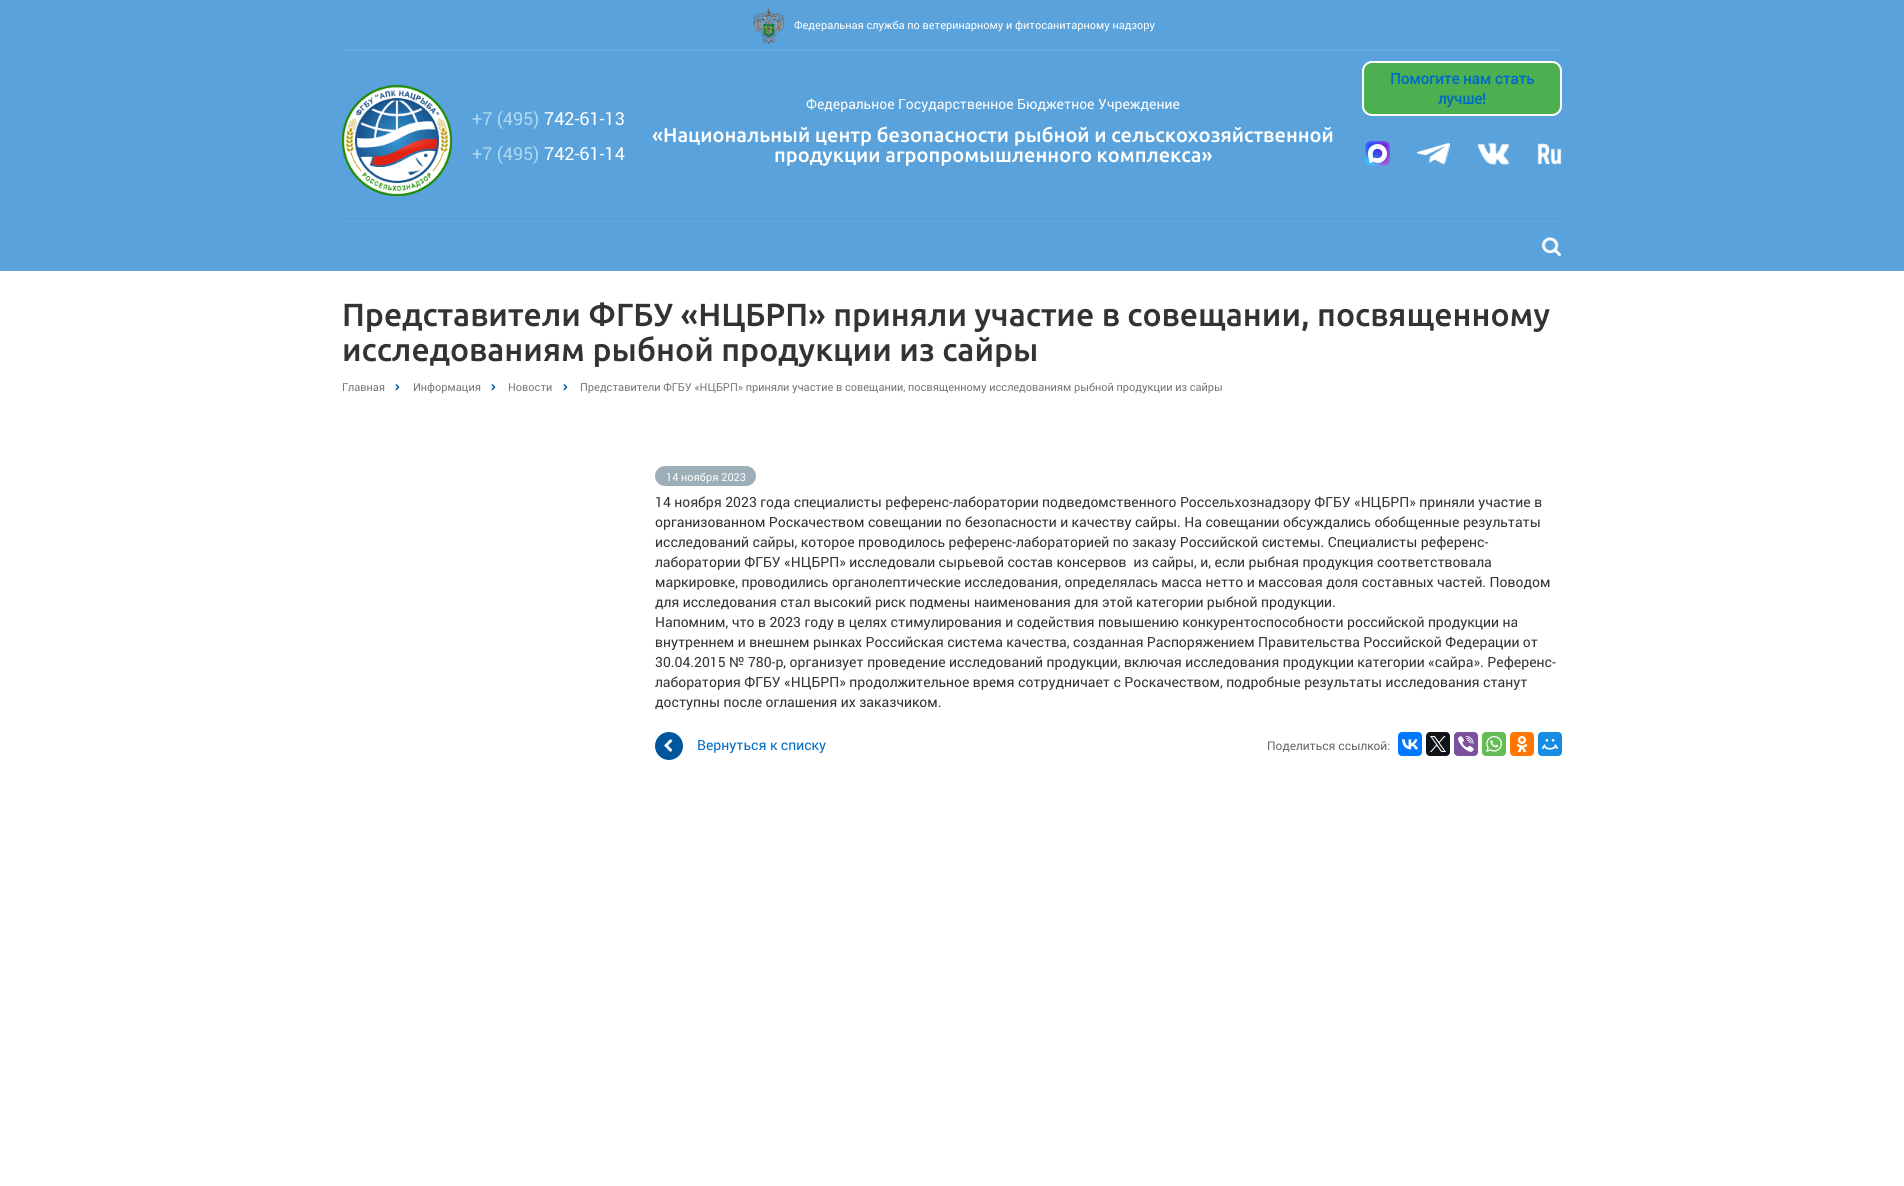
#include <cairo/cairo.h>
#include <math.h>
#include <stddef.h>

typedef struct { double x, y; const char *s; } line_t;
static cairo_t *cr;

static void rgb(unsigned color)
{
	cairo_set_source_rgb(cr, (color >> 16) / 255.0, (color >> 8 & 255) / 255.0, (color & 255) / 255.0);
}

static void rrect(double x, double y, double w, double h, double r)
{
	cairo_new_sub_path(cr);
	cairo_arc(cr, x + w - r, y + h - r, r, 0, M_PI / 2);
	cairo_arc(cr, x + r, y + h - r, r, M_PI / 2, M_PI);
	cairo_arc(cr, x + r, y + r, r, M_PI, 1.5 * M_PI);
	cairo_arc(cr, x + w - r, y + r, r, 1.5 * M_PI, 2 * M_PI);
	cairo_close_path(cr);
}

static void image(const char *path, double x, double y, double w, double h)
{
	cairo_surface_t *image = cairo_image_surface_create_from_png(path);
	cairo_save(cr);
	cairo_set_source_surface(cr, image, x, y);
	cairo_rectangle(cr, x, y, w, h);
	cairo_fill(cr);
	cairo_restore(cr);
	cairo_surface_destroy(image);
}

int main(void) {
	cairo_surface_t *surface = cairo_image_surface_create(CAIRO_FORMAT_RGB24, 1904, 1186);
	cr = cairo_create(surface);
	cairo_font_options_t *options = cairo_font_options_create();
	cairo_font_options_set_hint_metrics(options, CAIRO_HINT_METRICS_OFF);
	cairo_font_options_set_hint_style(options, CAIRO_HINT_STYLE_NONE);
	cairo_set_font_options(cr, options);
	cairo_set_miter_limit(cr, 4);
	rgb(0xffffff);
	cairo_paint(cr);
	rgb(0x59a2db);
	cairo_rectangle(cr, 0, 0, 1904, 271);
	cairo_fill(cr);
	image("img/1.png", 753, 8, 32, 36);
	rgb(0x67a8dc);
	cairo_rectangle(cr, 342, 49, 1220, 2);
	cairo_fill(cr);
	rgb(0x4caf50);
	rrect(1363, 62, 198, 53, 9);
	cairo_fill_preserve(cr);
	rgb(0xffffff);
	cairo_stroke(cr);
	image("img/2.png", 1365, 141, 25, 25);
	image("img/3.png", 1417, 143, 33, 21);
	image("img/4.png", 1477, 143, 33, 22);
	image("img/5.png", 1537, 143, 25, 22);
	image("img/6.png", 342, 84, 110, 112);
	rgb(0x67a8dc);
	cairo_rectangle(cr, 342, 221, 1220, 1);
	cairo_fill(cr);
	image("img/7.png", 1542, 237, 19, 19);
	image("img/8.png", 395, 384, 5, 7);
	image("img/8.png", 491, 384, 5, 7);
	image("img/8.png", 563, 384, 5, 7);
	rgb(0x9caeb8);
	rrect(655, 466, 101, 20, 10);
	cairo_fill(cr);
	rgb(0x00569c);
	cairo_arc(cr, 669, 746, 14, 0, 2 * M_PI);
	cairo_fill(cr);
	image("img/9.png", 664, 739, 9, 13);
	rgb(0x0077ff);
	rrect(1398, 732, 24, 24, 4);
	cairo_fill(cr);
	image("img/10.png", 1402, 739, 16, 11);
	rgb(0x0f1419);
	rrect(1426, 732, 24, 24, 4);
	cairo_fill(cr);
	image("img/11.png", 1430, 736, 16, 16);
	rgb(0x7b519d);
	rrect(1454, 732, 24, 24, 4);
	cairo_fill(cr);
	image("img/12.png", 1458, 736, 16, 16);
	rgb(0x65bc54);
	rrect(1482, 732, 24, 24, 4);
	cairo_fill(cr);
	image("img/13.png", 1486, 736, 16, 16);
	rgb(0xff7700);
	rrect(1510, 732, 24, 24, 4);
	cairo_fill(cr);
	image("img/14.png", 1516, 736, 12, 16);
	rgb(0x168de2);
	rrect(1538, 732, 24, 24, 4);
	cairo_fill(cr);
	image("img/15.png", 1542, 739, 16, 11);
	cairo_select_font_face(cr, "Roboto", CAIRO_FONT_SLANT_NORMAL, CAIRO_FONT_WEIGHT_NORMAL);
	cairo_set_font_size(cr, 11);
	rgb(0xffffff);
	cairo_move_to(cr, 794, 29);
	cairo_show_text(cr, "Федеральная служба по ветеринарному и фитосанитарному надзору");
	cairo_select_font_face(cr, "Roboto", CAIRO_FONT_SLANT_NORMAL, CAIRO_FONT_WEIGHT_BOLD);
	cairo_set_font_size(cr, 15);
	rgb(0x006cc5);
	cairo_move_to(cr, 1390, 84);
	cairo_show_text(cr, "Помогите нам стать");
	cairo_move_to(cr, 1438, 104);
	cairo_show_text(cr, "лучше!");
	cairo_select_font_face(cr, "Roboto", CAIRO_FONT_SLANT_NORMAL, CAIRO_FONT_WEIGHT_NORMAL);
	cairo_set_font_size(cr, 18);
	rgb(0xadd9ed);
	cairo_move_to(cr, 472, 125);
	cairo_show_text(cr, "+7 (495)");
	rgb(0xffffff);
	cairo_move_to(cr, 544, 125);
	cairo_show_text(cr, "742-61-13");
	rgb(0xadd9ed);
	cairo_move_to(cr, 472, 160);
	cairo_show_text(cr, "+7 (495)");
	rgb(0xffffff);
	cairo_move_to(cr, 544, 160);
	cairo_show_text(cr, "742-61-14");
	cairo_set_font_size(cr, 14);
	cairo_move_to(cr, 806, 109);
	cairo_show_text(cr, "Федеральное Государственное Бюджетное Учреждение");
	cairo_select_font_face(cr, "Ubuntu Medium", CAIRO_FONT_SLANT_NORMAL, CAIRO_FONT_WEIGHT_NORMAL);
	cairo_set_font_size(cr, 20);
	cairo_move_to(cr, 652, 142);
	cairo_show_text(cr, "«Национальный центр безопасности рыбной и сельскохозяйственной");
	cairo_move_to(cr, 774, 162);
	cairo_show_text(cr, "продукции агропромышленного комплекса»");
	cairo_set_font_size(cr, 32);
	rgb(0x333333);
	cairo_move_to(cr, 342, 326);
	cairo_show_text(cr, "Представители ФГБУ «НЦБРП» приняли участие в совещании, посвященному");
	cairo_move_to(cr, 342, 361);
	cairo_show_text(cr, "исследованиям рыбной продукции из сайры");
	cairo_select_font_face(cr, "Roboto", CAIRO_FONT_SLANT_NORMAL, CAIRO_FONT_WEIGHT_NORMAL);
	cairo_set_font_size(cr, 11);
	rgb(0x777777);
	{
		static const line_t items[] = {
			{342, 391, "Главная"},
			{413, 391, "Информация"},
			{508, 391, "Новости"},
			{580, 391, "Представители ФГБУ «НЦБРП» приняли участие в совещании, посвященному исследованиям рыбной продукции из сайры"},
		};
		for (size_t i = 0; i < sizeof items / sizeof *items; i++) {
			cairo_move_to(cr, items[i].x, items[i].y);
			cairo_show_text(cr, items[i].s);
		}
	}
	rgb(0xffffff);
	cairo_move_to(cr, 666, 481);
	cairo_show_text(cr, "14 ноября 2023");
	cairo_set_font_size(cr, 14);
	rgb(0x333333);
	{
		static const line_t items[] = {
			{655, 507, "14 ноября 2023 года специалисты референс-лаборатории подведомственного Россельхознадзору ФГБУ «НЦБРП» приняли участие в"},
			{655, 527, "организованном Роскачеством совещании по безопасности и качеству сайры. На совещании обсуждались обобщенные результаты"},
			{655, 547, "исследований сайры, которое проводилось референс-лабораторией по заказу Российской системы. Специалисты референс-"},
			{655, 567, "лаборатории ФГБУ «НЦБРП» исследовали сырьевой состав консервов  из сайры, и, если рыбная продукция соответствовала"},
			{655, 587, "маркировке, проводились органолептические исследования, определялась масса нетто и массовая доля составных частей. Поводом"},
			{655, 607, "для исследования стал высокий риск подмены наименования для этой категории рыбной продукции."},
			{655, 627, "Напомним, что в 2023 году в целях стимулирования и содействия повышению конкурентоспособности российской продукции на"},
			{655, 647, "внутреннем и внешнем рынках Российская система качества, созданная Распоряжением Правительства Российской Федерации от"},
			{655, 667, "30.04.2015 № 780-р, организует проведение исследований продукции, включая исследования продукции категории «сайра». Референс-"},
			{655, 687, "лаборатория ФГБУ «НЦБРП» продолжительное время сотрудничает с Роскачеством, подробные результаты исследования станут"},
			{655, 707, "доступны после оглашения их заказчиком."},
		};
		for (size_t i = 0; i < sizeof items / sizeof *items; i++) {
			cairo_move_to(cr, items[i].x, items[i].y);
			cairo_show_text(cr, items[i].s);
		}
	}
	rgb(0x006cc5);
	cairo_move_to(cr, 697, 750);
	cairo_show_text(cr, "Вернуться к списку");
	cairo_set_font_size(cr, 12);
	rgb(0x666666);
	cairo_move_to(cr, 1267, 750);
	cairo_show_text(cr, "Поделиться ссылкой:");
	cairo_surface_write_to_png(surface, "page.png");
	cairo_font_options_destroy(options);
	cairo_destroy(cr);
	cairo_surface_destroy(surface);
	return 0;
}
